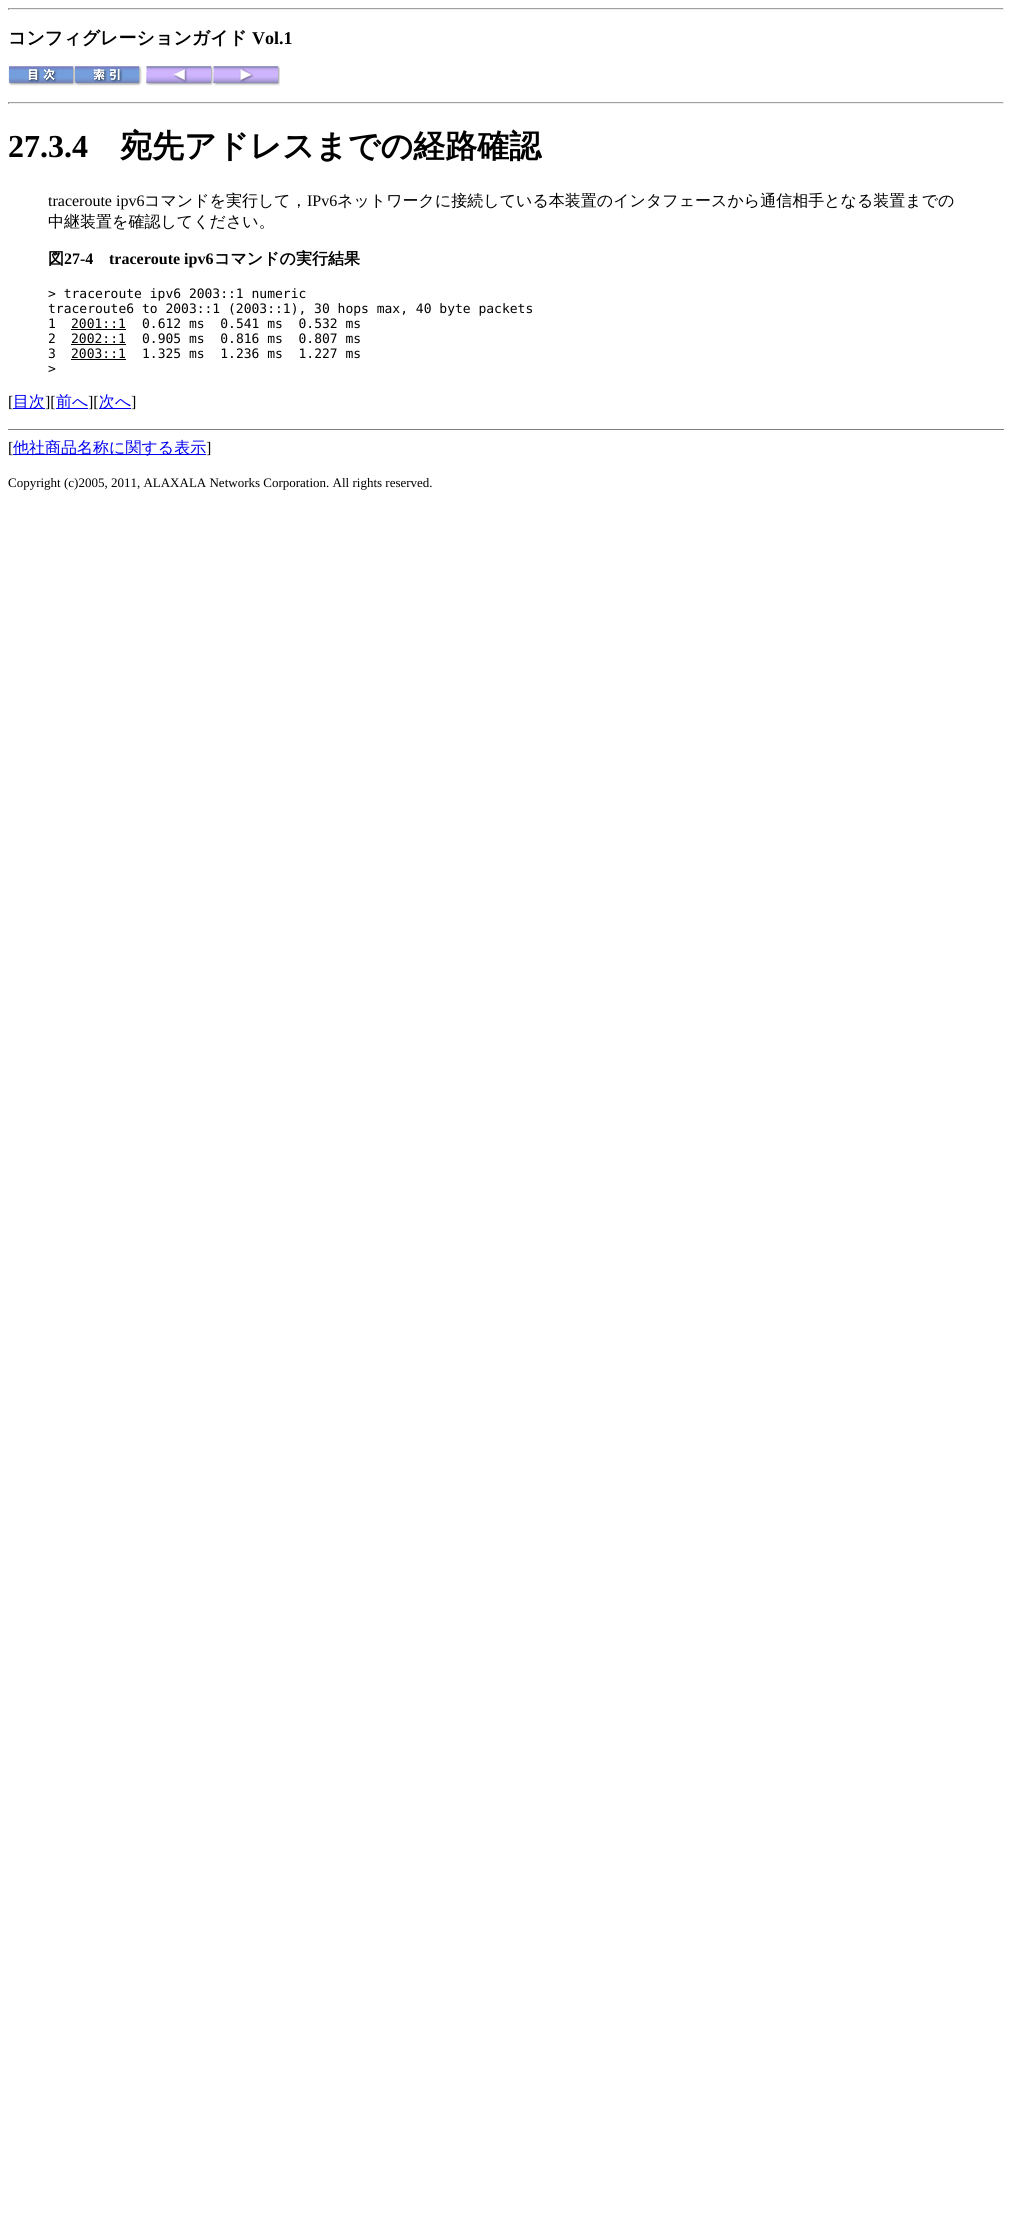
#include <cairo/cairo.h>
#include <math.h>
#include <stddef.h>

typedef struct { double x, y; const char *s; } line_t;
typedef struct { double x, y, w, h; unsigned color; } box_t;
static cairo_t *cr;

static void rgb(unsigned color)
{
	cairo_set_source_rgb(cr, (color >> 16) / 255.0, (color >> 8 & 255) / 255.0, (color & 255) / 255.0);
}

static void image(const char *path, double x, double y, double w, double h)
{
	cairo_surface_t *image = cairo_image_surface_create_from_png(path);
	cairo_save(cr);
	cairo_set_source_surface(cr, image, x, y);
	cairo_rectangle(cr, x, y, w, h);
	cairo_fill(cr);
	cairo_restore(cr);
	cairo_surface_destroy(image);
}

int main(void) {
	cairo_surface_t *surface = cairo_image_surface_create(CAIRO_FORMAT_RGB24, 1012, 2225);
	cr = cairo_create(surface);
	cairo_font_options_t *options = cairo_font_options_create();
	cairo_font_options_set_hint_metrics(options, CAIRO_HINT_METRICS_OFF);
	cairo_font_options_set_hint_style(options, CAIRO_HINT_STYLE_NONE);
	cairo_set_font_options(cr, options);
	cairo_set_miter_limit(cr, 4);
	rgb(0xffffff);
	cairo_paint(cr);
	{
		static const box_t items[] = {
			{8, 8, 996, 1, 0x9f9f9f},
			{1003, 8, 1, 2, 0xeeeeee},
			{8, 9, 996, 1, 0xeeeeee},
			{8, 8, 1, 2, 0x9f9f9f},
		};
		for (size_t i = 0; i < sizeof items / sizeof *items; i++) {
			rgb(items[i].color);
			cairo_rectangle(cr, items[i].x, items[i].y, items[i].w, items[i].h);
			cairo_fill(cr);
		}
	}
	image("img/1.png", 8, 66, 66, 20);
	image("img/2.png", 74, 66, 68, 20);
	image("img/3.png", 146, 66, 67, 20);
	image("img/4.png", 213, 66, 67, 20);
	{
		static const box_t items[] = {
			{8, 102, 996, 1, 0x9f9f9f},
			{1003, 102, 1, 2, 0xeeeeee},
			{8, 103, 996, 1, 0xeeeeee},
			{8, 102, 1, 2, 0x9f9f9f},
			{71, 329, 55, 1, 0x000000},
			{71, 344, 55, 1, 0x000000},
			{71, 359, 55, 1, 0x000000},
			{13, 408, 32, 1, 0x0000ee},
			{56, 408, 32, 1, 0x0000ee},
			{99, 408, 32, 1, 0x0000ee},
			{8, 429, 996, 1, 0x808080},
			{13, 454, 193, 1, 0x0000ee},
		};
		for (size_t i = 0; i < sizeof items / sizeof *items; i++) {
			rgb(items[i].color);
			cairo_rectangle(cr, items[i].x, items[i].y, items[i].w, items[i].h);
			cairo_fill(cr);
		}
	}
	cairo_select_font_face(cr, "WenQuanYi Zen Hei", CAIRO_FONT_SLANT_NORMAL, CAIRO_FONT_WEIGHT_BOLD);
	cairo_set_font_size(cr, 18);
	rgb(0x000000);
	cairo_move_to(cr, 8, 44);
	cairo_show_text(cr, "コンフィグレーションガイド");
	cairo_select_font_face(cr, "Liberation Serif", CAIRO_FONT_SLANT_NORMAL, CAIRO_FONT_WEIGHT_BOLD);
	cairo_move_to(cr, 252, 44);
	cairo_show_text(cr, "Vol.1");
	cairo_set_font_size(cr, 32);
	cairo_move_to(cr, 8, 157);
	cairo_show_text(cr, "27.3.4");
	cairo_select_font_face(cr, "WenQuanYi Zen Hei", CAIRO_FONT_SLANT_NORMAL, CAIRO_FONT_WEIGHT_BOLD);
	cairo_move_to(cr, 120, 157);
	cairo_show_text(cr, "宛先アドレスまでの経路確認");
	cairo_select_font_face(cr, "Liberation Serif", CAIRO_FONT_SLANT_NORMAL, CAIRO_FONT_WEIGHT_NORMAL);
	cairo_set_font_size(cr, 16);
	cairo_move_to(cr, 48, 206);
	cairo_show_text(cr, "traceroute ipv6");
	cairo_select_font_face(cr, "WenQuanYi Zen Hei Medium", CAIRO_FONT_SLANT_NORMAL, CAIRO_FONT_WEIGHT_NORMAL);
	cairo_move_to(cr, 144, 206);
	cairo_show_text(cr, "コマンドを実行して，");
	cairo_select_font_face(cr, "Liberation Serif", CAIRO_FONT_SLANT_NORMAL, CAIRO_FONT_WEIGHT_NORMAL);
	cairo_move_to(cr, 307, 206);
	cairo_show_text(cr, "IPv6");
	cairo_select_font_face(cr, "WenQuanYi Zen Hei Medium", CAIRO_FONT_SLANT_NORMAL, CAIRO_FONT_WEIGHT_NORMAL);
	cairo_move_to(cr, 337, 206);
	cairo_show_text(cr, "ネットワークに接続している本装置のインタフェースから通信相手となる装置までの");
	cairo_move_to(cr, 48, 227);
	cairo_show_text(cr, "中継装置を確認してください。");
	cairo_select_font_face(cr, "WenQuanYi Zen Hei", CAIRO_FONT_SLANT_NORMAL, CAIRO_FONT_WEIGHT_BOLD);
	cairo_move_to(cr, 48, 264);
	cairo_show_text(cr, "図");
	cairo_select_font_face(cr, "Liberation Serif", CAIRO_FONT_SLANT_NORMAL, CAIRO_FONT_WEIGHT_BOLD);
	cairo_move_to(cr, 64, 264);
	cairo_show_text(cr, "27-4");
	cairo_move_to(cr, 109, 264);
	cairo_show_text(cr, "traceroute ipv6");
	cairo_select_font_face(cr, "WenQuanYi Zen Hei", CAIRO_FONT_SLANT_NORMAL, CAIRO_FONT_WEIGHT_BOLD);
	cairo_move_to(cr, 214, 264);
	cairo_show_text(cr, "コマンドの実行結果");
	cairo_select_font_face(cr, "DejaVu Sans Mono", CAIRO_FONT_SLANT_NORMAL, CAIRO_FONT_WEIGHT_NORMAL);
	cairo_set_font_size(cr, 13);
	{
		static const line_t items[] = {
			{48, 298, "> traceroute ipv6 2003::1 numeric"},
			{48, 313, "traceroute6 to 2003::1 (2003::1), 30 hops max, 40 byte packets"},
			{48, 328, "1"},
			{71, 328, "2001::1"},
			{142, 328, "0.612 ms  0.541 ms  0.532 ms"},
			{48, 343, "2"},
			{71, 343, "2002::1"},
			{142, 343, "0.905 ms  0.816 ms  0.807 ms"},
			{48, 358, "3"},
			{71, 358, "2003::1"},
			{142, 358, "1.325 ms  1.236 ms  1.227 ms"},
			{48, 373, ">"},
		};
		for (size_t i = 0; i < sizeof items / sizeof *items; i++) {
			cairo_move_to(cr, items[i].x, items[i].y);
			cairo_show_text(cr, items[i].s);
		}
	}
	cairo_select_font_face(cr, "Liberation Serif", CAIRO_FONT_SLANT_NORMAL, CAIRO_FONT_WEIGHT_NORMAL);
	cairo_set_font_size(cr, 16);
	cairo_move_to(cr, 8, 407);
	cairo_show_text(cr, "[");
	cairo_select_font_face(cr, "WenQuanYi Zen Hei Medium", CAIRO_FONT_SLANT_NORMAL, CAIRO_FONT_WEIGHT_NORMAL);
	rgb(0x0000ee);
	cairo_move_to(cr, 13, 407);
	cairo_show_text(cr, "目次");
	cairo_select_font_face(cr, "Liberation Serif", CAIRO_FONT_SLANT_NORMAL, CAIRO_FONT_WEIGHT_NORMAL);
	rgb(0x000000);
	cairo_move_to(cr, 45, 407);
	cairo_show_text(cr, "][");
	cairo_select_font_face(cr, "WenQuanYi Zen Hei Medium", CAIRO_FONT_SLANT_NORMAL, CAIRO_FONT_WEIGHT_NORMAL);
	rgb(0x0000ee);
	cairo_move_to(cr, 56, 407);
	cairo_show_text(cr, "前へ");
	cairo_select_font_face(cr, "Liberation Serif", CAIRO_FONT_SLANT_NORMAL, CAIRO_FONT_WEIGHT_NORMAL);
	rgb(0x000000);
	cairo_move_to(cr, 88, 407);
	cairo_show_text(cr, "][");
	cairo_select_font_face(cr, "WenQuanYi Zen Hei Medium", CAIRO_FONT_SLANT_NORMAL, CAIRO_FONT_WEIGHT_NORMAL);
	rgb(0x0000ee);
	cairo_move_to(cr, 99, 407);
	cairo_show_text(cr, "次へ");
	cairo_select_font_face(cr, "Liberation Serif", CAIRO_FONT_SLANT_NORMAL, CAIRO_FONT_WEIGHT_NORMAL);
	rgb(0x000000);
	cairo_move_to(cr, 131, 407);
	cairo_show_text(cr, "]");
	cairo_move_to(cr, 8, 453);
	cairo_show_text(cr, "[");
	cairo_select_font_face(cr, "WenQuanYi Zen Hei Medium", CAIRO_FONT_SLANT_NORMAL, CAIRO_FONT_WEIGHT_NORMAL);
	rgb(0x0000ee);
	cairo_move_to(cr, 13, 453);
	cairo_show_text(cr, "他社商品名称に関する表示");
	cairo_select_font_face(cr, "Liberation Serif", CAIRO_FONT_SLANT_NORMAL, CAIRO_FONT_WEIGHT_NORMAL);
	rgb(0x000000);
	cairo_move_to(cr, 206, 453);
	cairo_show_text(cr, "]");
	cairo_set_font_size(cr, 13);
	cairo_move_to(cr, 8, 487);
	cairo_show_text(cr, "Copyright (c)2005, 2011, ALAXALA Networks Corporation. All rights reserved.");
	cairo_surface_write_to_png(surface, "page.png");
	cairo_font_options_destroy(options);
	cairo_destroy(cr);
	cairo_surface_destroy(surface);
	return 0;
}
